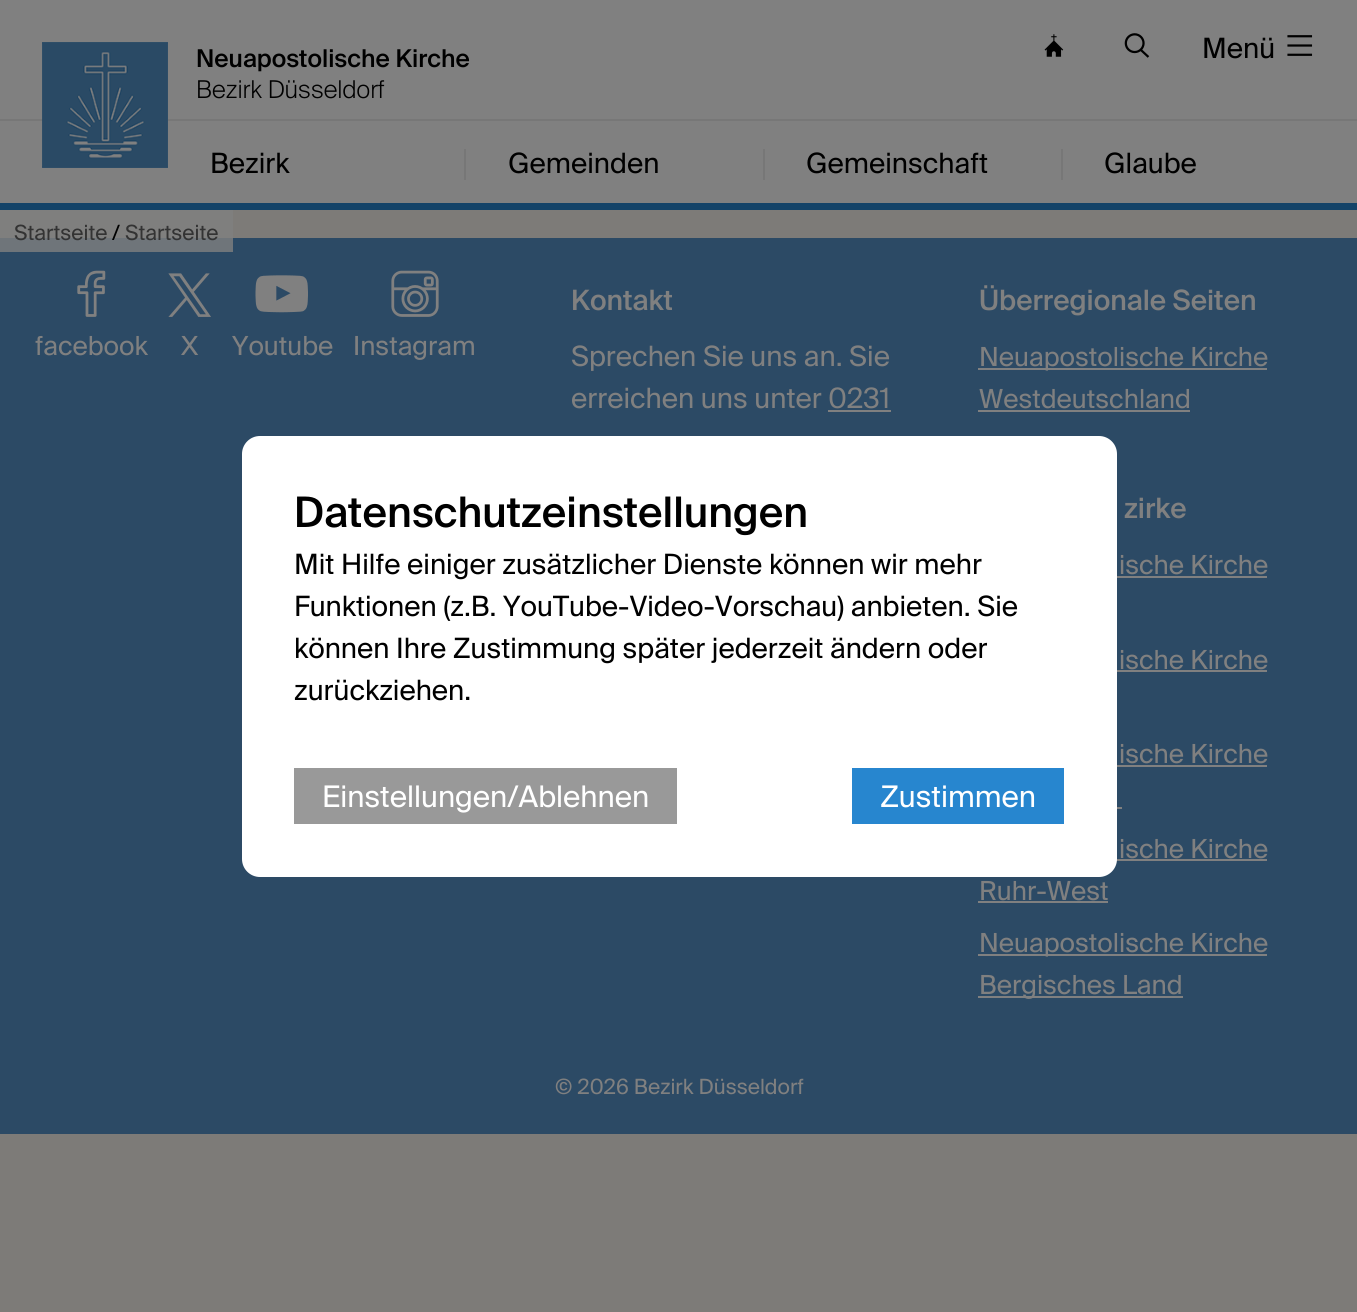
#include <cairo/cairo.h>
#include <math.h>
#include <stddef.h>

typedef struct { double x, y; const char *s; } line_t;
typedef struct { double x, y, w, h; unsigned color; } box_t;
static cairo_t *cr;

static void rgb(unsigned color)
{
	cairo_set_source_rgb(cr, (color >> 16) / 255.0, (color >> 8 & 255) / 255.0, (color & 255) / 255.0);
}

static void rrect(double x, double y, double w, double h, double r)
{
	cairo_new_sub_path(cr);
	cairo_arc(cr, x + w - r, y + h - r, r, 0, M_PI / 2);
	cairo_arc(cr, x + r, y + h - r, r, M_PI / 2, M_PI);
	cairo_arc(cr, x + r, y + r, r, M_PI, 1.5 * M_PI);
	cairo_arc(cr, x + w - r, y + r, r, 1.5 * M_PI, 2 * M_PI);
	cairo_close_path(cr);
}

static void image(const char *path, double x, double y, double w, double h)
{
	cairo_surface_t *image = cairo_image_surface_create_from_png(path);
	cairo_save(cr);
	cairo_set_source_surface(cr, image, x, y);
	cairo_rectangle(cr, x, y, w, h);
	cairo_fill(cr);
	cairo_restore(cr);
	cairo_surface_destroy(image);
}

int main(void) {
	cairo_surface_t *surface = cairo_image_surface_create(CAIRO_FORMAT_RGB24, 1357, 1312);
	cr = cairo_create(surface);
	cairo_font_options_t *options = cairo_font_options_create();
	cairo_font_options_set_hint_metrics(options, CAIRO_HINT_METRICS_OFF);
	cairo_font_options_set_hint_style(options, CAIRO_HINT_STYLE_NONE);
	cairo_set_font_options(cr, options);
	cairo_set_miter_limit(cr, 4);
	rgb(0x7d7b78);
	cairo_paint(cr);
	{
		static const box_t items[] = {
			{0, 210, 233, 28, 0x7f7f7e},
			{0, 0, 1357, 203, 0x808080},
			{0, 203, 1357, 7, 0x144368},
			{0, 119, 1357, 2, 0x777777},
		};
		for (size_t i = 0; i < sizeof items / sizeof *items; i++) {
			rgb(items[i].color);
			cairo_rectangle(cr, items[i].x, items[i].y, items[i].w, items[i].h);
			cairo_fill(cr);
		}
	}
	image("img/1.png", 42, 42, 126, 126);
	image("img/2.png", 1044, 34, 20, 23);
	image("img/3.png", 1124, 33, 26, 25);
	image("img/4.png", 1287, 35, 26, 21);
	{
		static const box_t items[] = {
			{464, 149, 2, 31, 0x777777},
			{763, 149, 2, 31, 0x777777},
			{1061, 149, 2, 31, 0x777777},
			{0, 238, 1357, 896, 0x2c4a65},
			{0, 238, 233, 14, 0x6f757a},
		};
		for (size_t i = 0; i < sizeof items / sizeof *items; i++) {
			rgb(items[i].color);
			cairo_rectangle(cr, items[i].x, items[i].y, items[i].w, items[i].h);
			cairo_fill(cr);
		}
	}
	image("img/5.png", 77, 270, 29, 47);
	image("img/6.png", 168, 273, 43, 44);
	image("img/7.png", 255, 275, 53, 38);
	image("img/8.png", 391, 270, 48, 47);
	{
		static const box_t items[] = {
			{828, 410, 63, 2, 0x808080},
			{978, 368, 289, 2, 0x808080},
			{978, 410, 212, 2, 0x808080},
			{1117, 576, 150, 2, 0x808080},
			{1117, 670, 150, 2, 0x808080},
			{1117, 765, 150, 2, 0x808080},
			{1117, 807, 5, 2, 0x808080},
			{1116, 859, 151, 2, 0x808080},
			{978, 901, 130, 2, 0x808080},
			{978, 954, 289, 2, 0x808080},
			{978, 996, 205, 2, 0x808080},
		};
		for (size_t i = 0; i < sizeof items / sizeof *items; i++) {
			rgb(items[i].color);
			cairo_rectangle(cr, items[i].x, items[i].y, items[i].w, items[i].h);
			cairo_fill(cr);
		}
	}
	rgb(0xffffff);
	rrect(242, 436, 875, 441, 18);
	cairo_fill(cr);
	rgb(0x999999);
	cairo_rectangle(cr, 294, 768, 383, 56);
	cairo_fill(cr);
	rgb(0x2786cf);
	cairo_rectangle(cr, 852, 768, 212, 56);
	cairo_fill(cr);
	cairo_select_font_face(cr, "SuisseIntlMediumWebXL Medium", CAIRO_FONT_SLANT_NORMAL, CAIRO_FONT_WEIGHT_NORMAL);
	cairo_set_font_size(cr, 24.5);
	rgb(0x000000);
	cairo_move_to(cr, 196, 67);
	cairo_show_text(cr, "Neuapostolische Kirche");
	cairo_select_font_face(cr, "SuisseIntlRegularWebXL", CAIRO_FONT_SLANT_NORMAL, CAIRO_FONT_WEIGHT_NORMAL);
	cairo_set_font_size(cr, 28);
	cairo_move_to(cr, 1202, 58);
	cairo_show_text(cr, "Menü");
	cairo_select_font_face(cr, "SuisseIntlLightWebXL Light", CAIRO_FONT_SLANT_NORMAL, CAIRO_FONT_WEIGHT_NORMAL);
	cairo_set_font_size(cr, 24.5);
	cairo_move_to(cr, 196, 98);
	cairo_show_text(cr, "Bezirk Düsseldorf");
	cairo_select_font_face(cr, "SuisseIntlRegularWebXL", CAIRO_FONT_SLANT_NORMAL, CAIRO_FONT_WEIGHT_NORMAL);
	cairo_set_font_size(cr, 28);
	{
		static const line_t items[] = {
			{210, 173, "Bezirk"},
			{508, 173, "Gemeinden"},
			{806, 173, "Gemeinschaft"},
			{1104, 173, "Glaube"},
		};
		for (size_t i = 0; i < sizeof items / sizeof *items; i++) {
			cairo_move_to(cr, items[i].x, items[i].y);
			cairo_show_text(cr, items[i].s);
		}
	}
	cairo_set_font_size(cr, 21);
	rgb(0x333333);
	cairo_move_to(cr, 14, 240);
	cairo_show_text(cr, "Startseite");
	rgb(0x000000);
	cairo_move_to(cr, 112, 240);
	cairo_show_text(cr, "/");
	rgb(0x333333);
	cairo_move_to(cr, 125, 240);
	cairo_show_text(cr, "Startseite");
	cairo_set_font_size(cr, 26.25);
	rgb(0x808080);
	{
		static const line_t items[] = {
			{35, 355, "facebook"},
			{181, 355, "X"},
			{232, 355, "Youtube"},
			{353, 355, "Instagram"},
		};
		for (size_t i = 0; i < sizeof items / sizeof *items; i++) {
			cairo_move_to(cr, items[i].x, items[i].y);
			cairo_show_text(cr, items[i].s);
		}
	}
	cairo_select_font_face(cr, "SuisseIntlMediumWebXL Medium", CAIRO_FONT_SLANT_NORMAL, CAIRO_FONT_WEIGHT_NORMAL);
	cairo_set_font_size(cr, 28);
	cairo_move_to(cr, 571, 310);
	cairo_show_text(cr, "Kontakt");
	cairo_select_font_face(cr, "SuisseIntlRegularWebXL", CAIRO_FONT_SLANT_NORMAL, CAIRO_FONT_WEIGHT_NORMAL);
	cairo_move_to(cr, 571, 366);
	cairo_show_text(cr, "Sprechen Sie uns an. Sie");
	cairo_move_to(cr, 571, 408);
	cairo_show_text(cr, "erreichen uns unter 0231");
	cairo_select_font_face(cr, "SuisseIntlMediumWebXL Medium", CAIRO_FONT_SLANT_NORMAL, CAIRO_FONT_WEIGHT_NORMAL);
	cairo_move_to(cr, 979, 310);
	cairo_show_text(cr, "Überregionale Seiten");
	cairo_select_font_face(cr, "SuisseIntlRegularWebXL", CAIRO_FONT_SLANT_NORMAL, CAIRO_FONT_WEIGHT_NORMAL);
	cairo_set_font_size(cr, 26.25);
	cairo_move_to(cr, 979, 366);
	cairo_show_text(cr, "Neuapostolische Kirche");
	cairo_move_to(cr, 979, 408);
	cairo_show_text(cr, "Westdeutschland");
	cairo_select_font_face(cr, "SuisseIntlMediumWebXL Medium", CAIRO_FONT_SLANT_NORMAL, CAIRO_FONT_WEIGHT_NORMAL);
	cairo_set_font_size(cr, 28);
	cairo_move_to(cr, 1124, 518);
	cairo_show_text(cr, "zirke");
	cairo_select_font_face(cr, "SuisseIntlRegularWebXL", CAIRO_FONT_SLANT_NORMAL, CAIRO_FONT_WEIGHT_NORMAL);
	cairo_set_font_size(cr, 26.25);
	{
		static const line_t items[] = {
			{1119, 574, "ische Kirche"},
			{1119, 669, "ische Kirche"},
			{1119, 763, "ische Kirche"},
			{1119, 858, "ische Kirche"},
			{979, 900, "Ruhr-West"},
			{979, 952, "Neuapostolische Kirche"},
			{979, 994, "Bergisches Land"},
		};
		for (size_t i = 0; i < sizeof items / sizeof *items; i++) {
			cairo_move_to(cr, items[i].x, items[i].y);
			cairo_show_text(cr, items[i].s);
		}
	}
	cairo_set_font_size(cr, 21);
	cairo_move_to(cr, 555, 1094);
	cairo_show_text(cr, "© 2026 Bezirk Düsseldorf");
	cairo_select_font_face(cr, "SuisseIntlMediumWebXL Medium", CAIRO_FONT_SLANT_NORMAL, CAIRO_FONT_WEIGHT_NORMAL);
	cairo_set_font_size(cr, 42);
	rgb(0x000000);
	cairo_move_to(cr, 294, 527);
	cairo_show_text(cr, "Datenschutzeinstellungen");
	cairo_select_font_face(cr, "SuisseIntlRegularWebXL", CAIRO_FONT_SLANT_NORMAL, CAIRO_FONT_WEIGHT_NORMAL);
	cairo_set_font_size(cr, 28);
	{
		static const line_t items[] = {
			{294, 574, "Mit Hilfe einiger zusätzlicher Dienste können wir mehr"},
			{294, 616, "Funktionen (z.B. YouTube-Video-Vorschau) anbieten. Sie"},
			{294, 658, "können Ihre Zustimmung später jederzeit ändern oder"},
			{294, 700, "zurückziehen."},
		};
		for (size_t i = 0; i < sizeof items / sizeof *items; i++) {
			cairo_move_to(cr, items[i].x, items[i].y);
			cairo_show_text(cr, items[i].s);
		}
	}
	cairo_set_font_size(cr, 29.75);
	rgb(0xffffff);
	cairo_move_to(cr, 322, 807);
	cairo_show_text(cr, "Einstellungen/Ablehnen");
	cairo_move_to(cr, 880, 807);
	cairo_show_text(cr, "Zustimmen");
	cairo_surface_write_to_png(surface, "page.png");
	cairo_font_options_destroy(options);
	cairo_destroy(cr);
	cairo_surface_destroy(surface);
	return 0;
}
